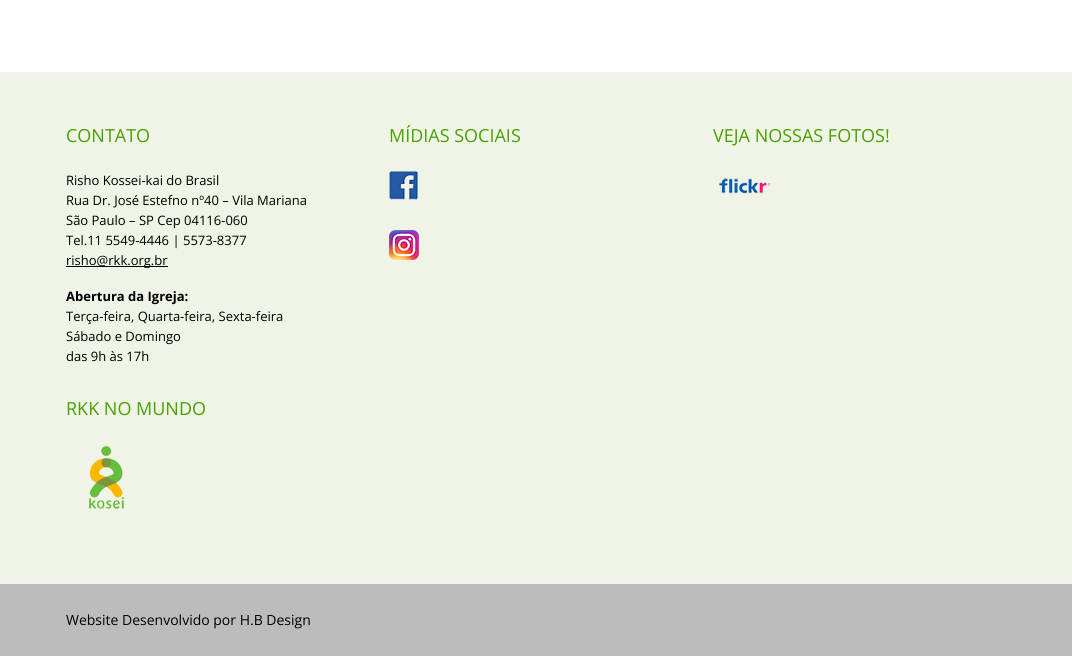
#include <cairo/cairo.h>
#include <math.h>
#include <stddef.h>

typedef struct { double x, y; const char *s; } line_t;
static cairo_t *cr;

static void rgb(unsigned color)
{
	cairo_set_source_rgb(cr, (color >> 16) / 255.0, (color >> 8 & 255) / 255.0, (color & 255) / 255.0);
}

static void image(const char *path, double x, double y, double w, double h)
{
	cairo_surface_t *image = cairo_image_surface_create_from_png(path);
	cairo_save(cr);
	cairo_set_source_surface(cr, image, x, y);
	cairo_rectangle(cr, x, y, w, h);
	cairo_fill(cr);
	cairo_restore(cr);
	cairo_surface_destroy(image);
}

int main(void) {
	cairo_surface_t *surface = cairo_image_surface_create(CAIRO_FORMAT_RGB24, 1072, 656);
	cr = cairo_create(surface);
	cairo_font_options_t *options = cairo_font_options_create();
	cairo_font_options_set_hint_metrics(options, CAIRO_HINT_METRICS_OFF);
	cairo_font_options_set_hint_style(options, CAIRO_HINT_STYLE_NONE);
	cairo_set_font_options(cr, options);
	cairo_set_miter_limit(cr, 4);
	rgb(0xffffff);
	cairo_paint(cr);
	rgb(0xeff4e6);
	cairo_rectangle(cr, 0, 72, 1072, 512);
	cairo_fill(cr);
	rgb(0x000000);
	cairo_rectangle(cr, 66, 266, 102, 1);
	cairo_fill(cr);
	image("img/1.png", 389, 171, 29, 29);
	image("img/2.png", 389, 230, 30, 30);
	image("img/3.png", 719, 178, 52, 16);
	image("img/4.png", 89, 446, 35, 63);
	rgb(0xbcbcbc);
	cairo_rectangle(cr, 0, 584, 1072, 72);
	cairo_fill(cr);
	cairo_select_font_face(cr, "Open Sans", CAIRO_FONT_SLANT_NORMAL, CAIRO_FONT_WEIGHT_NORMAL);
	cairo_set_font_size(cr, 18);
	rgb(0x48a100);
	cairo_move_to(cr, 66, 142);
	cairo_show_text(cr, "CONTATO");
	cairo_set_font_size(cr, 13);
	rgb(0x000000);
	{
		static const line_t items[] = {
			{66, 185, "Risho Kossei-kai do Brasil"},
			{66, 205, "Rua Dr. José Estefno nº40 – Vila Mariana"},
			{66, 225, "São Paulo – SP Cep 04116-060"},
			{66, 245, "Tel.11 5549-4446 | 5573-8377"},
			{66, 265, "risho@rkk.org.br"},
		};
		for (size_t i = 0; i < sizeof items / sizeof *items; i++) {
			cairo_move_to(cr, items[i].x, items[i].y);
			cairo_show_text(cr, items[i].s);
		}
	}
	cairo_select_font_face(cr, "Open Sans", CAIRO_FONT_SLANT_NORMAL, CAIRO_FONT_WEIGHT_BOLD);
	cairo_move_to(cr, 66, 301);
	cairo_show_text(cr, "Abertura da Igreja:");
	cairo_select_font_face(cr, "Open Sans", CAIRO_FONT_SLANT_NORMAL, CAIRO_FONT_WEIGHT_NORMAL);
	{
		static const line_t items[] = {
			{66, 321, "Terça-feira, Quarta-feira, Sexta-feira"},
			{66, 341, "Sábado e Domingo"},
			{66, 361, "das 9h às 17h"},
		};
		for (size_t i = 0; i < sizeof items / sizeof *items; i++) {
			cairo_move_to(cr, items[i].x, items[i].y);
			cairo_show_text(cr, items[i].s);
		}
	}
	cairo_set_font_size(cr, 18);
	rgb(0x48a100);
	{
		static const line_t items[] = {
			{389, 142, "MÍDIAS SOCIAIS"},
			{713, 142, "VEJA NOSSAS FOTOS!"},
			{66, 415, "RKK NO MUNDO"},
		};
		for (size_t i = 0; i < sizeof items / sizeof *items; i++) {
			cairo_move_to(cr, items[i].x, items[i].y);
			cairo_show_text(cr, items[i].s);
		}
	}
	cairo_set_font_size(cr, 14);
	rgb(0x000000);
	cairo_move_to(cr, 66, 625);
	cairo_show_text(cr, "Website Desenvolvido por H.B Design");
	cairo_surface_write_to_png(surface, "page.png");
	cairo_font_options_destroy(options);
	cairo_destroy(cr);
	cairo_surface_destroy(surface);
	return 0;
}
